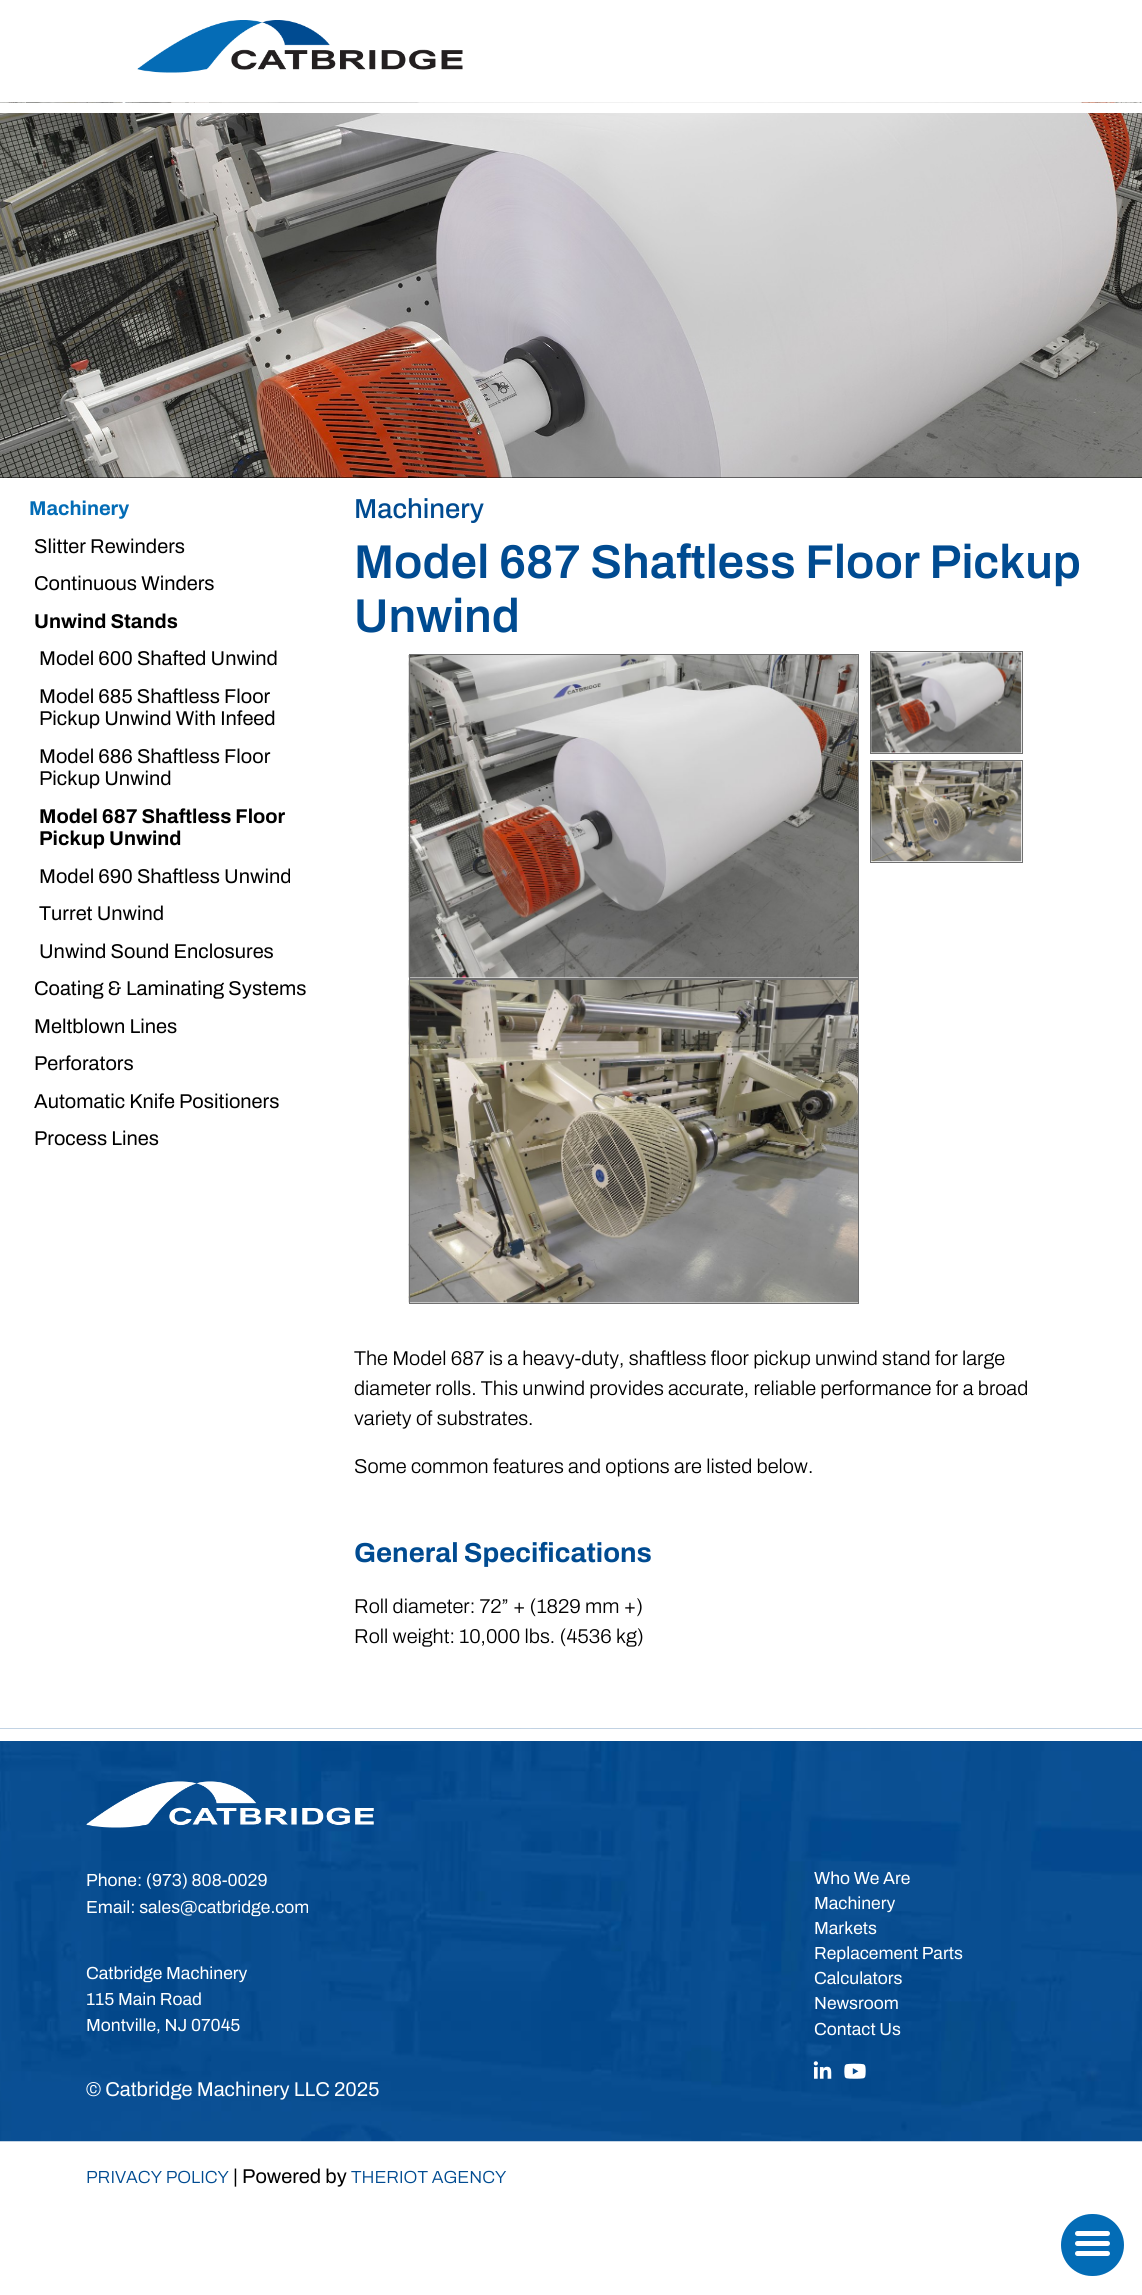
#include <cairo/cairo.h>
#include <math.h>
#include <stddef.h>

typedef struct { double x, y; const char *s; } line_t;
static cairo_t *cr;

static void rgb(unsigned color)
{
	cairo_set_source_rgb(cr, (color >> 16) / 255.0, (color >> 8 & 255) / 255.0, (color & 255) / 255.0);
}

static void rrect(double x, double y, double w, double h, double r)
{
	cairo_new_sub_path(cr);
	cairo_arc(cr, x + w - r, y + h - r, r, 0, M_PI / 2);
	cairo_arc(cr, x + r, y + h - r, r, M_PI / 2, M_PI);
	cairo_arc(cr, x + r, y + r, r, M_PI, 1.5 * M_PI);
	cairo_arc(cr, x + w - r, y + r, r, 1.5 * M_PI, 2 * M_PI);
	cairo_close_path(cr);
}

static void image(const char *path, double x, double y, double w, double h)
{
	cairo_surface_t *image = cairo_image_surface_create_from_png(path);
	cairo_save(cr);
	cairo_set_source_surface(cr, image, x, y);
	cairo_rectangle(cr, x, y, w, h);
	cairo_fill(cr);
	cairo_restore(cr);
	cairo_surface_destroy(image);
}

int main(void) {
	cairo_surface_t *surface = cairo_image_surface_create(CAIRO_FORMAT_RGB24, 1142, 2295);
	cr = cairo_create(surface);
	cairo_font_options_t *options = cairo_font_options_create();
	cairo_font_options_set_hint_metrics(options, CAIRO_HINT_METRICS_OFF);
	cairo_font_options_set_hint_style(options, CAIRO_HINT_STYLE_NONE);
	cairo_set_font_options(cr, options);
	cairo_set_miter_limit(cr, 4);
	rgb(0xffffff);
	cairo_paint(cr);
	image("img/1.png", 137, 20, 326, 53);
	rgb(0x000000);
	cairo_rectangle(cr, 0, 477, 1142, 1);
	cairo_fill(cr);
	image("img/2.png", 0, 102, 1142, 376);
	rgb(0xffffff);
	cairo_rectangle(cr, 0, 103, 1142, 10);
	cairo_fill(cr);
	image("img/3.png", 408, 655, 450, 323);
	cairo_rectangle(cr, 409.5, 654.5, 449, 324);
	rgb(0x707070);
	cairo_set_line_width(cr, 1);
	cairo_stroke(cr);
	image("img/4.png", 408, 980, 450, 323);
	cairo_rectangle(cr, 409.5, 979.5, 449, 324);
	cairo_stroke(cr);
	image("img/5.png", 871, 652, 151, 101);
	cairo_rectangle(cr, 870.5, 651.5, 152, 102);
	cairo_stroke(cr);
	image("img/6.png", 871, 761, 151, 101);
	cairo_rectangle(cr, 870.5, 760.5, 152, 102);
	cairo_stroke(cr);
	image("img/7.png", 0, 1728, 1142, 414);
	rgb(0xffffff);
	cairo_rectangle(cr, 0, 1729, 1142, 12);
	cairo_fill(cr);
	image("img/8.png", 86, 1781, 288, 47);
	image("img/9.png", 813, 2061, 19, 18);
	image("img/10.png", 844, 2063, 22, 16);
	rgb(0x036cb6);
	rrect(1061, 2214, 63, 62, 31);
	cairo_fill(cr);
	rgb(0xffffff);
	rrect(1075, 2231, 35, 5, 2.5);
	cairo_fill(cr);
	rrect(1075, 2241, 35, 5, 2.5);
	cairo_fill(cr);
	rrect(1075, 2251, 35, 5, 2.5);
	cairo_fill(cr);
	cairo_select_font_face(cr, "Archivo", CAIRO_FONT_SLANT_NORMAL, CAIRO_FONT_WEIGHT_BOLD);
	cairo_set_font_size(cr, 20);
	rgb(0x036cb6);
	cairo_move_to(cr, 29, 515);
	cairo_show_text(cr, "Machinery");
	cairo_select_font_face(cr, "Archivo", CAIRO_FONT_SLANT_NORMAL, CAIRO_FONT_WEIGHT_NORMAL);
	rgb(0x000000);
	cairo_move_to(cr, 34, 553);
	cairo_show_text(cr, "Slitter Rewinders");
	cairo_move_to(cr, 34, 590);
	cairo_show_text(cr, "Continuous Winders");
	cairo_select_font_face(cr, "Archivo", CAIRO_FONT_SLANT_NORMAL, CAIRO_FONT_WEIGHT_BOLD);
	cairo_move_to(cr, 34, 628);
	cairo_show_text(cr, "Unwind Stands");
	cairo_select_font_face(cr, "Archivo", CAIRO_FONT_SLANT_NORMAL, CAIRO_FONT_WEIGHT_NORMAL);
	{
		static const line_t items[] = {
			{39, 665, "Model 600 Shafted Unwind"},
			{39, 703, "Model 685 Shaftless Floor"},
			{39, 725, "Pickup Unwind With Infeed"},
			{39, 763, "Model 686 Shaftless Floor"},
			{39, 785, "Pickup Unwind"},
		};
		for (size_t i = 0; i < sizeof items / sizeof *items; i++) {
			cairo_move_to(cr, items[i].x, items[i].y);
			cairo_show_text(cr, items[i].s);
		}
	}
	cairo_select_font_face(cr, "Archivo", CAIRO_FONT_SLANT_NORMAL, CAIRO_FONT_WEIGHT_BOLD);
	cairo_move_to(cr, 39, 823);
	cairo_show_text(cr, "Model 687 Shaftless Floor");
	cairo_move_to(cr, 39, 845);
	cairo_show_text(cr, "Pickup Unwind");
	cairo_select_font_face(cr, "Archivo", CAIRO_FONT_SLANT_NORMAL, CAIRO_FONT_WEIGHT_NORMAL);
	{
		static const line_t items[] = {
			{39, 883, "Model 690 Shaftless Unwind"},
			{39, 920, "Turret Unwind"},
			{39, 958, "Unwind Sound Enclosures"},
			{34, 995, "Coating & Laminating Systems"},
			{34, 1033, "Meltblown Lines"},
			{34, 1070, "Perforators"},
			{34, 1108, "Automatic Knife Positioners"},
			{34, 1145, "Process Lines"},
		};
		for (size_t i = 0; i < sizeof items / sizeof *items; i++) {
			cairo_move_to(cr, items[i].x, items[i].y);
			cairo_show_text(cr, items[i].s);
		}
	}
	cairo_select_font_face(cr, "Archivo Medium", CAIRO_FONT_SLANT_NORMAL, CAIRO_FONT_WEIGHT_NORMAL);
	cairo_set_font_size(cr, 27.5);
	rgb(0x004b91);
	cairo_move_to(cr, 354, 518);
	cairo_show_text(cr, "Machinery");
	cairo_select_font_face(cr, "Archivo SemiBold", CAIRO_FONT_SLANT_NORMAL, CAIRO_FONT_WEIGHT_NORMAL);
	cairo_set_font_size(cr, 47.5);
	cairo_move_to(cr, 354, 578);
	cairo_show_text(cr, "Model 687 Shaftless Floor Pickup");
	cairo_move_to(cr, 354, 632);
	cairo_show_text(cr, "Unwind");
	cairo_select_font_face(cr, "Archivo Light", CAIRO_FONT_SLANT_NORMAL, CAIRO_FONT_WEIGHT_NORMAL);
	cairo_set_font_size(cr, 20);
	rgb(0x000000);
	{
		static const line_t items[] = {
			{354, 1365, "The Model 687 is a heavy-duty, shaftless floor pickup unwind stand for large"},
			{354, 1395, "diameter rolls. This unwind provides accurate, reliable performance for a broad"},
			{354, 1425, "variety of substrates."},
			{354, 1473, "Some common features and options are listed below."},
		};
		for (size_t i = 0; i < sizeof items / sizeof *items; i++) {
			cairo_move_to(cr, items[i].x, items[i].y);
			cairo_show_text(cr, items[i].s);
		}
	}
	cairo_select_font_face(cr, "Archivo", CAIRO_FONT_SLANT_NORMAL, CAIRO_FONT_WEIGHT_BOLD);
	cairo_set_font_size(cr, 27.5);
	rgb(0x004b91);
	cairo_move_to(cr, 354, 1562);
	cairo_show_text(cr, "General Specifications");
	cairo_select_font_face(cr, "Archivo Light", CAIRO_FONT_SLANT_NORMAL, CAIRO_FONT_WEIGHT_NORMAL);
	cairo_set_font_size(cr, 20);
	rgb(0x000000);
	cairo_move_to(cr, 354, 1613);
	cairo_show_text(cr, "Roll diameter: 72” + (1829 mm +)");
	cairo_move_to(cr, 354, 1643);
	cairo_show_text(cr, "Roll weight: 10,000 lbs. (4536 kg)");
	cairo_select_font_face(cr, "Archivo", CAIRO_FONT_SLANT_NORMAL, CAIRO_FONT_WEIGHT_NORMAL);
	cairo_set_font_size(cr, 17.5);
	rgb(0xffffff);
	{
		static const line_t items[] = {
			{86, 1886, "Phone: (973) 808-0029"},
			{86, 1913, "Email: sales@catbridge.com"},
			{86, 1979, "Catbridge Machinery"},
			{86, 2005, "115 Main Road"},
			{86, 2031, "Montville, NJ 07045"},
		};
		for (size_t i = 0; i < sizeof items / sizeof *items; i++) {
			cairo_move_to(cr, items[i].x, items[i].y);
			cairo_show_text(cr, items[i].s);
		}
	}
	cairo_set_font_size(cr, 20);
	cairo_move_to(cr, 86, 2096);
	cairo_show_text(cr, "© Catbridge Machinery LLC 2025");
	cairo_set_font_size(cr, 17.5);
	{
		static const line_t items[] = {
			{814, 1884, "Who We Are"},
			{814, 1909, "Machinery"},
			{814, 1934, "Markets"},
			{814, 1959, "Replacement Parts"},
			{814, 1984, "Calculators"},
			{814, 2009, "Newsroom"},
			{814, 2035, "Contact Us"},
		};
		for (size_t i = 0; i < sizeof items / sizeof *items; i++) {
			cairo_move_to(cr, items[i].x, items[i].y);
			cairo_show_text(cr, items[i].s);
		}
	}
	cairo_select_font_face(cr, "Archivo Light", CAIRO_FONT_SLANT_NORMAL, CAIRO_FONT_WEIGHT_NORMAL);
	rgb(0x004b91);
	cairo_move_to(cr, 86, 2183);
	cairo_show_text(cr, "PRIVACY POLICY");
	cairo_select_font_face(cr, "Archivo", CAIRO_FONT_SLANT_NORMAL, CAIRO_FONT_WEIGHT_NORMAL);
	cairo_set_font_size(cr, 20);
	rgb(0x000000);
	cairo_move_to(cr, 233, 2183);
	cairo_show_text(cr, "| Powered by");
	cairo_select_font_face(cr, "Archivo Light", CAIRO_FONT_SLANT_NORMAL, CAIRO_FONT_WEIGHT_NORMAL);
	cairo_set_font_size(cr, 17.5);
	rgb(0x004b91);
	cairo_move_to(cr, 351, 2183);
	cairo_show_text(cr, "THERIOT AGENCY");
	cairo_surface_write_to_png(surface, "page.png");
	cairo_font_options_destroy(options);
	cairo_destroy(cr);
	cairo_surface_destroy(surface);
	return 0;
}
